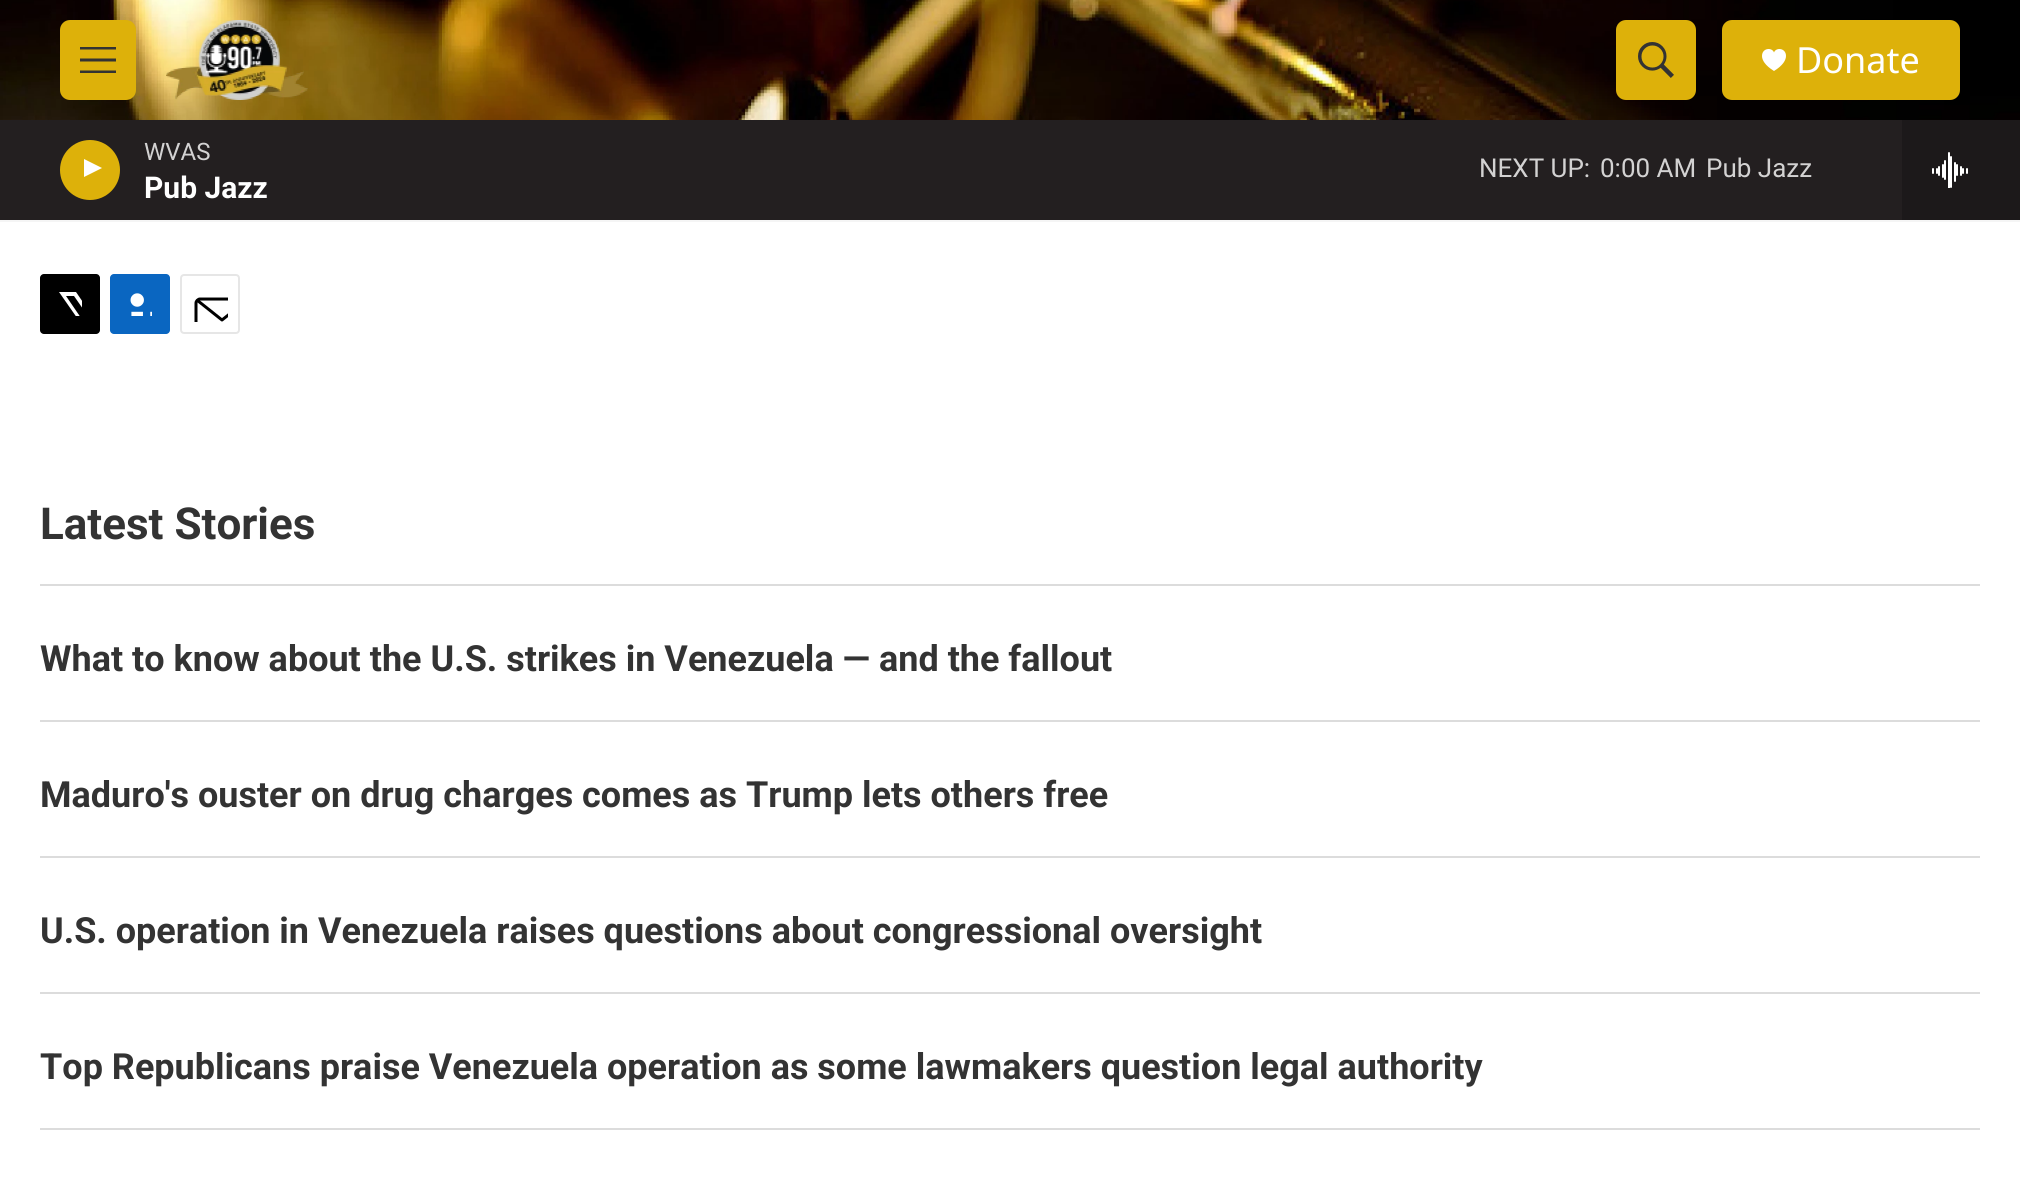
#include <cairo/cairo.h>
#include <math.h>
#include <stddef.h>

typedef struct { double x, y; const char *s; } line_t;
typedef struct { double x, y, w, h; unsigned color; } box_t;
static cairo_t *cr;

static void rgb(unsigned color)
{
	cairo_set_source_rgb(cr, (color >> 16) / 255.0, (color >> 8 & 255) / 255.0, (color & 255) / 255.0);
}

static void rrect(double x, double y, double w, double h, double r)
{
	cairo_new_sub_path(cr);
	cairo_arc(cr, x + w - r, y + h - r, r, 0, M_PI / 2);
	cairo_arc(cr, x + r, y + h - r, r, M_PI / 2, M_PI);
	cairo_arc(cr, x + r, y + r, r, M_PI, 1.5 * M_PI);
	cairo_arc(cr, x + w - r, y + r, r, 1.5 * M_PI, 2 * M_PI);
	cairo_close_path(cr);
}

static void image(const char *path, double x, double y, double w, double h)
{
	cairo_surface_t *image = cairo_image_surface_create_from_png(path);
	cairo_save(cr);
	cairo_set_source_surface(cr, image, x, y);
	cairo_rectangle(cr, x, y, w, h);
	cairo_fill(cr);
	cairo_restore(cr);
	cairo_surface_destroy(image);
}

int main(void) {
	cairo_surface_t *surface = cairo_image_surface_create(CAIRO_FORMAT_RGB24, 2020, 1191);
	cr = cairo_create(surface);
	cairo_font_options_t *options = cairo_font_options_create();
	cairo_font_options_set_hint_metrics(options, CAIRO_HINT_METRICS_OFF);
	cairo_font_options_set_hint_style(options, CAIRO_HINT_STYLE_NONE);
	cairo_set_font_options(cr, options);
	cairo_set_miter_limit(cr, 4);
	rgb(0xffffff);
	cairo_paint(cr);
	rgb(0xf5f5f5);
	cairo_rectangle(cr, 0, 220, 2020, 2);
	cairo_fill(cr);
	image("img/1.png", 0, 0, 2020, 120);
	rgb(0xddb10a);
	rrect(60, 20, 76, 80, 10);
	cairo_fill(cr);
	rgb(0x333333);
	cairo_set_fill_rule(cr, CAIRO_FILL_RULE_EVEN_ODD);
	cairo_new_path(cr);
	cairo_move_to(cr, 80, 61.5);
	cairo_line_to(cr, 80, 58.5);
	cairo_line_to(cr, 116, 58.5);
	cairo_line_to(cr, 116, 61.5);
	cairo_close_path(cr);
	cairo_move_to(cr, 80, 49.5);
	cairo_line_to(cr, 80, 47);
	cairo_line_to(cr, 116, 47);
	cairo_line_to(cr, 116, 49.5);
	cairo_close_path(cr);
	cairo_move_to(cr, 80, 73);
	cairo_line_to(cr, 80, 70.5);
	cairo_line_to(cr, 116, 70.5);
	cairo_line_to(cr, 116, 73);
	cairo_close_path(cr);
	cairo_fill(cr);
	image("img/2.png", 166, 20, 142, 80);
	rgb(0xddb10a);
	rrect(1616, 20, 80, 80, 10);
	cairo_fill(cr);
	image("img/3.png", 1638, 42, 36, 36);
	rrect(1722, 20, 238, 80, 10);
	cairo_fill(cr);
	image("img/4.png", 1762, 49, 24, 22);
	rgb(0x231f20);
	cairo_rectangle(cr, 0, 120, 1902, 100);
	cairo_fill(cr);
	rgb(0xddb10a);
	cairo_arc(cr, 90, 170, 30, 0, 2 * M_PI);
	cairo_fill(cr);
	cairo_save(cr);
	cairo_set_fill_rule(cr, CAIRO_FILL_RULE_WINDING);
	cairo_rectangle(cr, 84, 156, 23, 30);
	cairo_clip(cr);
	rgb(0xffffff);
	cairo_new_path(cr);
	cairo_move_to(cr, 83, 158.5);
	cairo_line_to(cr, 102, 168);
	cairo_line_to(cr, 83, 177.5);
	cairo_close_path(cr);
	cairo_fill(cr);
	cairo_restore(cr);
	rgb(0x1c191a);
	cairo_rectangle(cr, 1902, 120, 118, 100);
	cairo_fill(cr);
	image("img/5.png", 1932, 152, 36, 36);
	rgb(0x000000);
	rrect(40, 274, 60, 60, 4);
	cairo_fill(cr);
	cairo_save(cr);
	cairo_set_fill_rule(cr, CAIRO_FILL_RULE_WINDING);
	cairo_rectangle(cr, 58, 292, 24, 24);
	cairo_clip(cr);
	rgb(0xffffff);
	cairo_new_path(cr);
	cairo_move_to(cr, 94, 317);
	cairo_line_to(cr, 100, 326);
	cairo_curve_to(cr, 100, 328, 101, 331, 99, 332);
	cairo_line_to(cr, 74, 296);
	cairo_line_to(cr, 66, 296);
	cairo_line_to(cr, 92, 334);
	cairo_line_to(cr, 87, 334);
	cairo_line_to(cr, 84, 329);
	cairo_line_to(cr, 80, 334);
	cairo_line_to(cr, 74, 334);
	cairo_line_to(cr, 82, 325);
	cairo_line_to(cr, 59, 292);
	cairo_line_to(cr, 76, 292);
	cairo_line_to(cr, 91, 314);
	cairo_line_to(cr, 100, 304);
	cairo_line_to(cr, 100, 310);
	cairo_close_path(cr);
	cairo_fill(cr);
	cairo_restore(cr);
	rgb(0x0a66c1);
	rrect(110, 274, 60, 60, 4);
	cairo_fill(cr);
	image("img/6.png", 130, 293, 22, 23);
	rrect(181, 275, 58, 58, 3);
	rgb(0xe6e6e6);
	cairo_stroke(cr);
	cairo_save(cr);
	cairo_set_fill_rule(cr, CAIRO_FILL_RULE_WINDING);
	cairo_rectangle(cr, 192, 286, 36, 36);
	cairo_clip(cr);
	cairo_new_path(cr);
	cairo_move_to(cr, 248, 330);
	cairo_curve_to(cr, 248, 332, 246, 333.5, 244, 333.5);
	cairo_line_to(cr, 200, 333.5);
	cairo_curve_to(cr, 198, 333.5, 196, 332, 196, 330);
	cairo_line_to(cr, 196, 303);
	cairo_curve_to(cr, 196, 301, 198, 299, 200, 299);
	cairo_line_to(cr, 244, 299);
	cairo_curve_to(cr, 246, 299, 248, 301, 248, 303);
	cairo_close_path(cr);
	cairo_move_to(cr, 246.5, 300.5);
	cairo_line_to(cr, 222, 320);
	cairo_line_to(cr, 197.5, 300.5);
	rgb(0x000000);
	cairo_set_line_width(cr, 3);
	cairo_set_line_cap(cr, CAIRO_LINE_CAP_ROUND);
	cairo_set_line_join(cr, CAIRO_LINE_JOIN_ROUND);
	cairo_stroke(cr);
	cairo_restore(cr);
	{
		static const box_t items[] = {
			{40, 584, 1940, 2, 0xdcdcdc},
			{40, 720, 1940, 2, 0xdcdcdc},
			{40, 856, 1940, 2, 0xdcdcdc},
			{40, 992, 1940, 2, 0xdcdcdc},
			{40, 1128, 1940, 2, 0xdcdcdc},
		};
		for (size_t i = 0; i < sizeof items / sizeof *items; i++) {
			rgb(items[i].color);
			cairo_rectangle(cr, items[i].x, items[i].y, items[i].w, items[i].h);
			cairo_fill(cr);
		}
	}
	cairo_select_font_face(cr, "Noto Sans", CAIRO_FONT_SLANT_NORMAL, CAIRO_FONT_WEIGHT_NORMAL);
	cairo_set_font_size(cr, 36);
	rgb(0xffffff);
	cairo_move_to(cr, 1796, 73);
	cairo_show_text(cr, "Donate");
	cairo_select_font_face(cr, "Roboto", CAIRO_FONT_SLANT_NORMAL, CAIRO_FONT_WEIGHT_NORMAL);
	cairo_set_font_size(cr, 24);
	rgb(0xd3d2d2);
	cairo_move_to(cr, 144, 160);
	cairo_show_text(cr, "WVAS");
	cairo_select_font_face(cr, "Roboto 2", CAIRO_FONT_SLANT_NORMAL, CAIRO_FONT_WEIGHT_BOLD);
	cairo_set_font_size(cr, 30);
	rgb(0xffffff);
	cairo_move_to(cr, 144, 198);
	cairo_show_text(cr, "Pub Jazz");
	cairo_select_font_face(cr, "Roboto", CAIRO_FONT_SLANT_NORMAL, CAIRO_FONT_WEIGHT_NORMAL);
	cairo_set_font_size(cr, 26);
	rgb(0xd3d2d2);
	{
		static const line_t items[] = {
			{1479, 177, "NEXT UP:"},
			{1600, 177, "0:00 AM"},
			{1706, 177, "Pub Jazz"},
		};
		for (size_t i = 0; i < sizeof items / sizeof *items; i++) {
			cairo_move_to(cr, items[i].x, items[i].y);
			cairo_show_text(cr, items[i].s);
		}
	}
	cairo_select_font_face(cr, "Roboto", CAIRO_FONT_SLANT_NORMAL, CAIRO_FONT_WEIGHT_BOLD);
	cairo_set_font_size(cr, 44);
	rgb(0x333333);
	cairo_move_to(cr, 40, 539);
	cairo_show_text(cr, "Latest Stories");
	cairo_set_font_size(cr, 36);
	{
		static const line_t items[] = {
			{40, 671, "What to know about the U.S. strikes in Venezuela — and the fallout"},
			{40, 807, "Maduro's ouster on drug charges comes as Trump lets others free"},
			{40, 943, "U.S. operation in Venezuela raises questions about congressional oversight"},
			{40, 1079, "Top Republicans praise Venezuela operation as some lawmakers question legal authority"},
		};
		for (size_t i = 0; i < sizeof items / sizeof *items; i++) {
			cairo_move_to(cr, items[i].x, items[i].y);
			cairo_show_text(cr, items[i].s);
		}
	}
	cairo_surface_write_to_png(surface, "page.png");
	cairo_font_options_destroy(options);
	cairo_destroy(cr);
	cairo_surface_destroy(surface);
	return 0;
}
